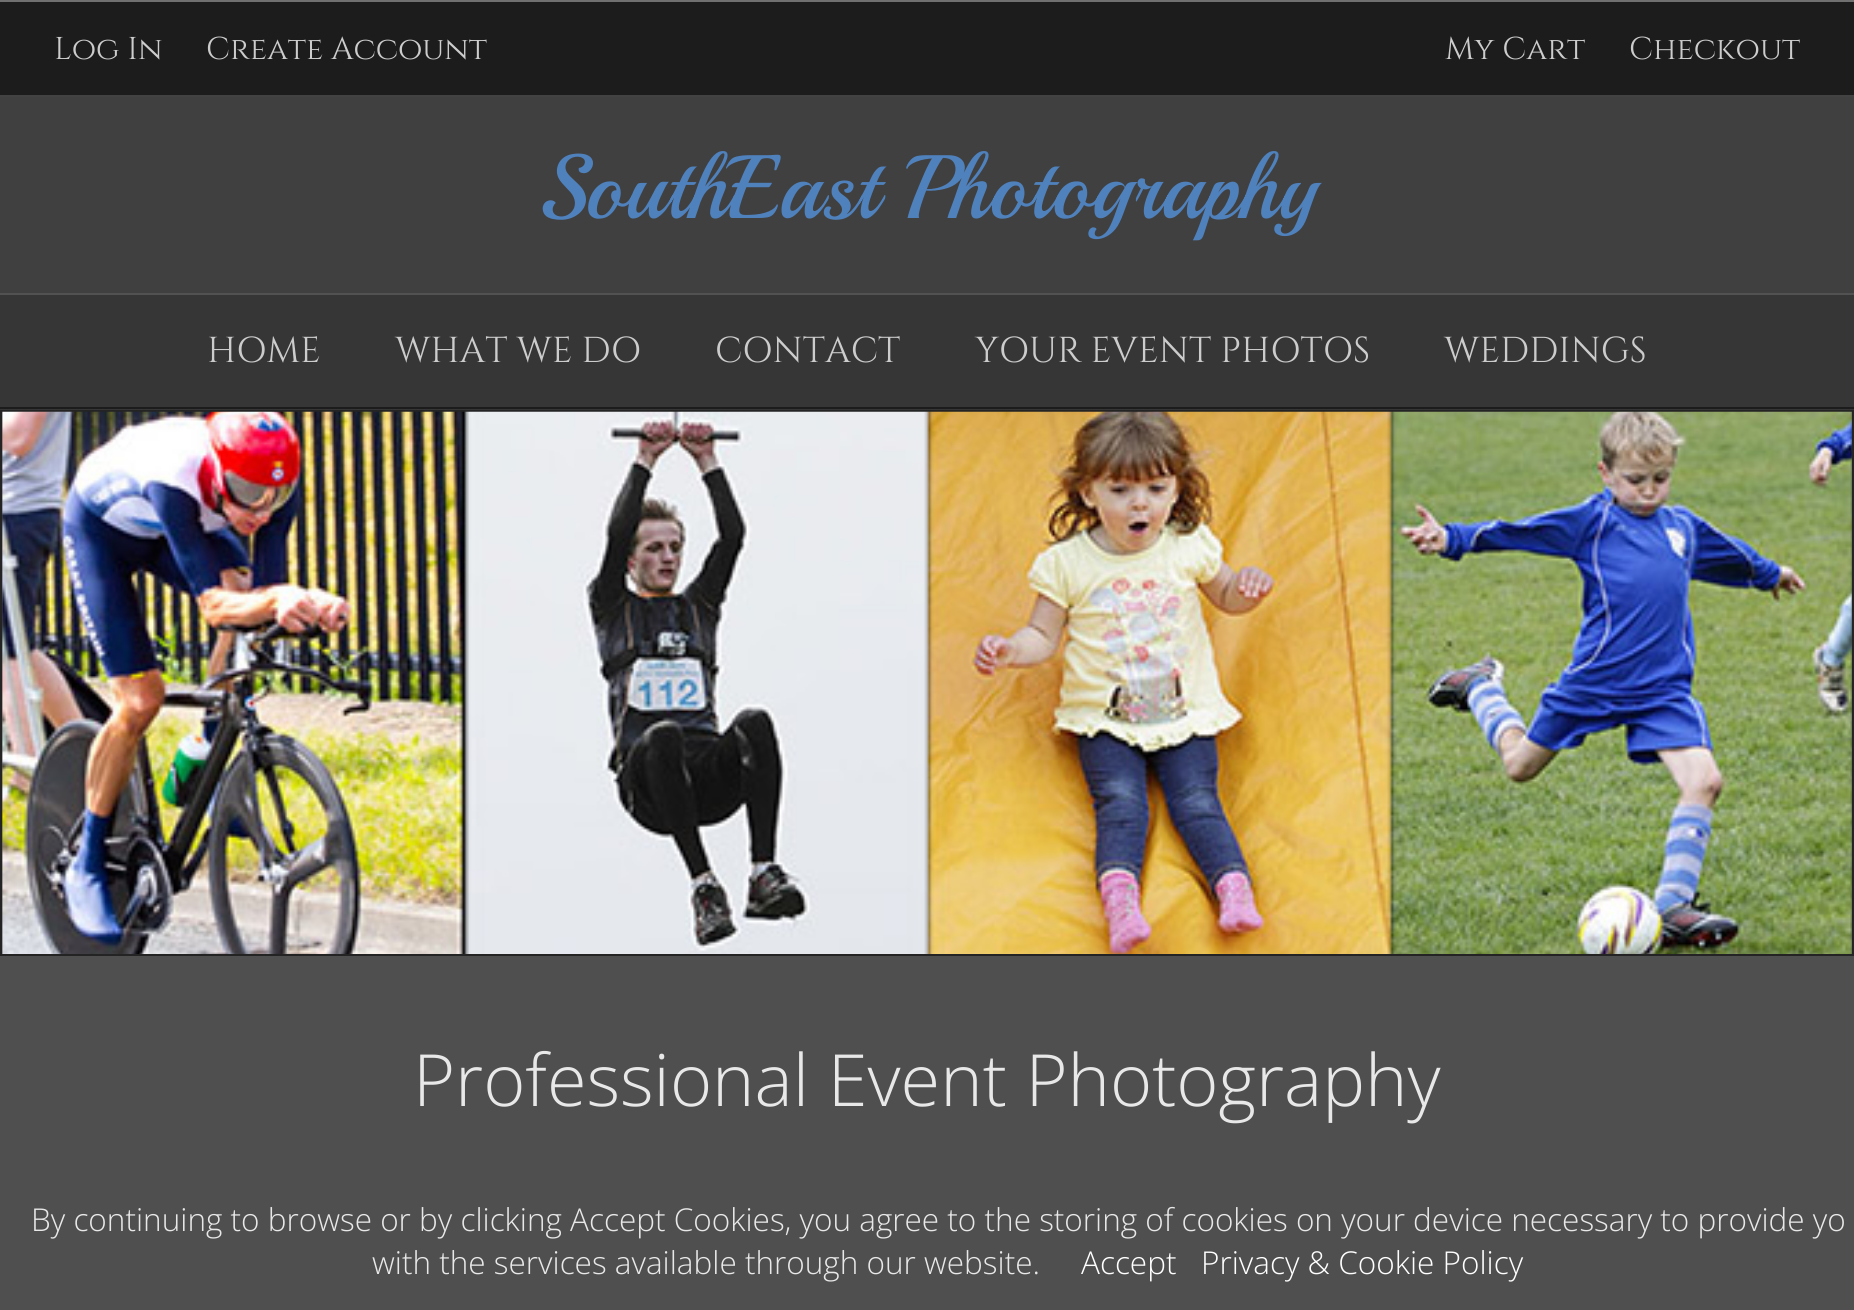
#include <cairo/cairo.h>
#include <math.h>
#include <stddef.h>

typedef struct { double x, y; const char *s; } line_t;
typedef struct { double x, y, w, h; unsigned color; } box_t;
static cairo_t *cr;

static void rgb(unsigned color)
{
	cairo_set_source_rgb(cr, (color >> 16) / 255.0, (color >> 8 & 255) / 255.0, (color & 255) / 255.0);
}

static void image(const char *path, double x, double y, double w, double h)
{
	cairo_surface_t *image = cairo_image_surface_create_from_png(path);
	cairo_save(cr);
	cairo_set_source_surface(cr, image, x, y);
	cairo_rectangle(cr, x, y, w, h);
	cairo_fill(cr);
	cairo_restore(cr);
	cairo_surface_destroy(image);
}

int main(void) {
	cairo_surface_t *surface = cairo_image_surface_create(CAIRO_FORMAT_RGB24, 1854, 1310);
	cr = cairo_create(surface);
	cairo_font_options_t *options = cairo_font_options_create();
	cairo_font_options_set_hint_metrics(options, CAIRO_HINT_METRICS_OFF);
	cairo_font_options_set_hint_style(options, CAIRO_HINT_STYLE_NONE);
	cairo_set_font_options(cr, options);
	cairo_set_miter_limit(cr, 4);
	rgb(0x4f4f4f);
	cairo_paint(cr);
	{
		static const box_t items[] = {
			{0, 2, 1854, 93, 0x1c1c1c},
			{0, 0, 1854, 2, 0x707070},
			{0, 95, 1854, 2, 0x424242},
			{0, 97, 1854, 196, 0x404040},
			{0, 295, 1854, 115, 0x363636},
			{0, 293, 1854, 2, 0x525252},
			{0, 407, 1854, 2, 0x1c1c1c},
		};
		for (size_t i = 0; i < sizeof items / sizeof *items; i++) {
			rgb(items[i].color);
			cairo_rectangle(cr, items[i].x, items[i].y, items[i].w, items[i].h);
			cairo_fill(cr);
		}
	}
	cairo_rectangle(cr, 1, 411, 1852, 544);
	rgb(0x242424);
	cairo_stroke(cr);
	image("img/1.png", 2, 411, 1850, 543);
	cairo_select_font_face(cr, "Cinzel", CAIRO_FONT_SLANT_NORMAL, CAIRO_FONT_WEIGHT_NORMAL);
	cairo_set_font_size(cr, 31.5);
	rgb(0xcccccc);
	{
		static const line_t items[] = {
			{54, 59, "Log In"},
			{206, 59, "Create Account"},
			{1445, 59, "My Cart"},
			{1629, 59, "Checkout"},
		};
		for (size_t i = 0; i < sizeof items / sizeof *items; i++) {
			cairo_move_to(cr, items[i].x, items[i].y);
			cairo_show_text(cr, items[i].s);
		}
	}
	cairo_select_font_face(cr, "Playball", CAIRO_FONT_SLANT_NORMAL, CAIRO_FONT_WEIGHT_NORMAL);
	cairo_set_font_size(cr, 90);
	rgb(0x4f81bd);
	cairo_move_to(cr, 538, 218);
	cairo_show_text(cr, "SouthEast Photography");
	cairo_select_font_face(cr, "Cinzel", CAIRO_FONT_SLANT_NORMAL, CAIRO_FONT_WEIGHT_NORMAL);
	cairo_set_font_size(cr, 36);
	rgb(0xcccccc);
	{
		static const line_t items[] = {
			{207, 362, "HOME"},
			{395, 362, "WHAT WE DO"},
			{715, 362, "CONTACT"},
			{975, 362, "YOUR EVENT PHOTOS"},
			{1444, 362, "WEDDINGS"},
		};
		for (size_t i = 0; i < sizeof items / sizeof *items; i++) {
			cairo_move_to(cr, items[i].x, items[i].y);
			cairo_show_text(cr, items[i].s);
		}
	}
	cairo_select_font_face(cr, "Open Sans Light", CAIRO_FONT_SLANT_NORMAL, CAIRO_FONT_WEIGHT_NORMAL);
	cairo_set_font_size(cr, 72);
	rgb(0xe8e8e8);
	cairo_move_to(cr, 413, 1106);
	cairo_show_text(cr, "Professional Event Photography");
	cairo_set_font_size(cr, 31.5);
	cairo_move_to(cr, 31, 1231);
	cairo_show_text(cr, "By continuing to browse or by clicking Accept Cookies, you agree to the storing of cookies on your device necessary to provide yo");
	cairo_move_to(cr, 372, 1274);
	cairo_show_text(cr, "with the services available through our website.");
	rgb(0xffffff);
	cairo_move_to(cr, 1081, 1274);
	cairo_show_text(cr, "Accept");
	cairo_move_to(cr, 1201, 1274);
	cairo_show_text(cr, "Privacy & Cookie Policy");
	cairo_surface_write_to_png(surface, "page.png");
	cairo_font_options_destroy(options);
	cairo_destroy(cr);
	cairo_surface_destroy(surface);
	return 0;
}
